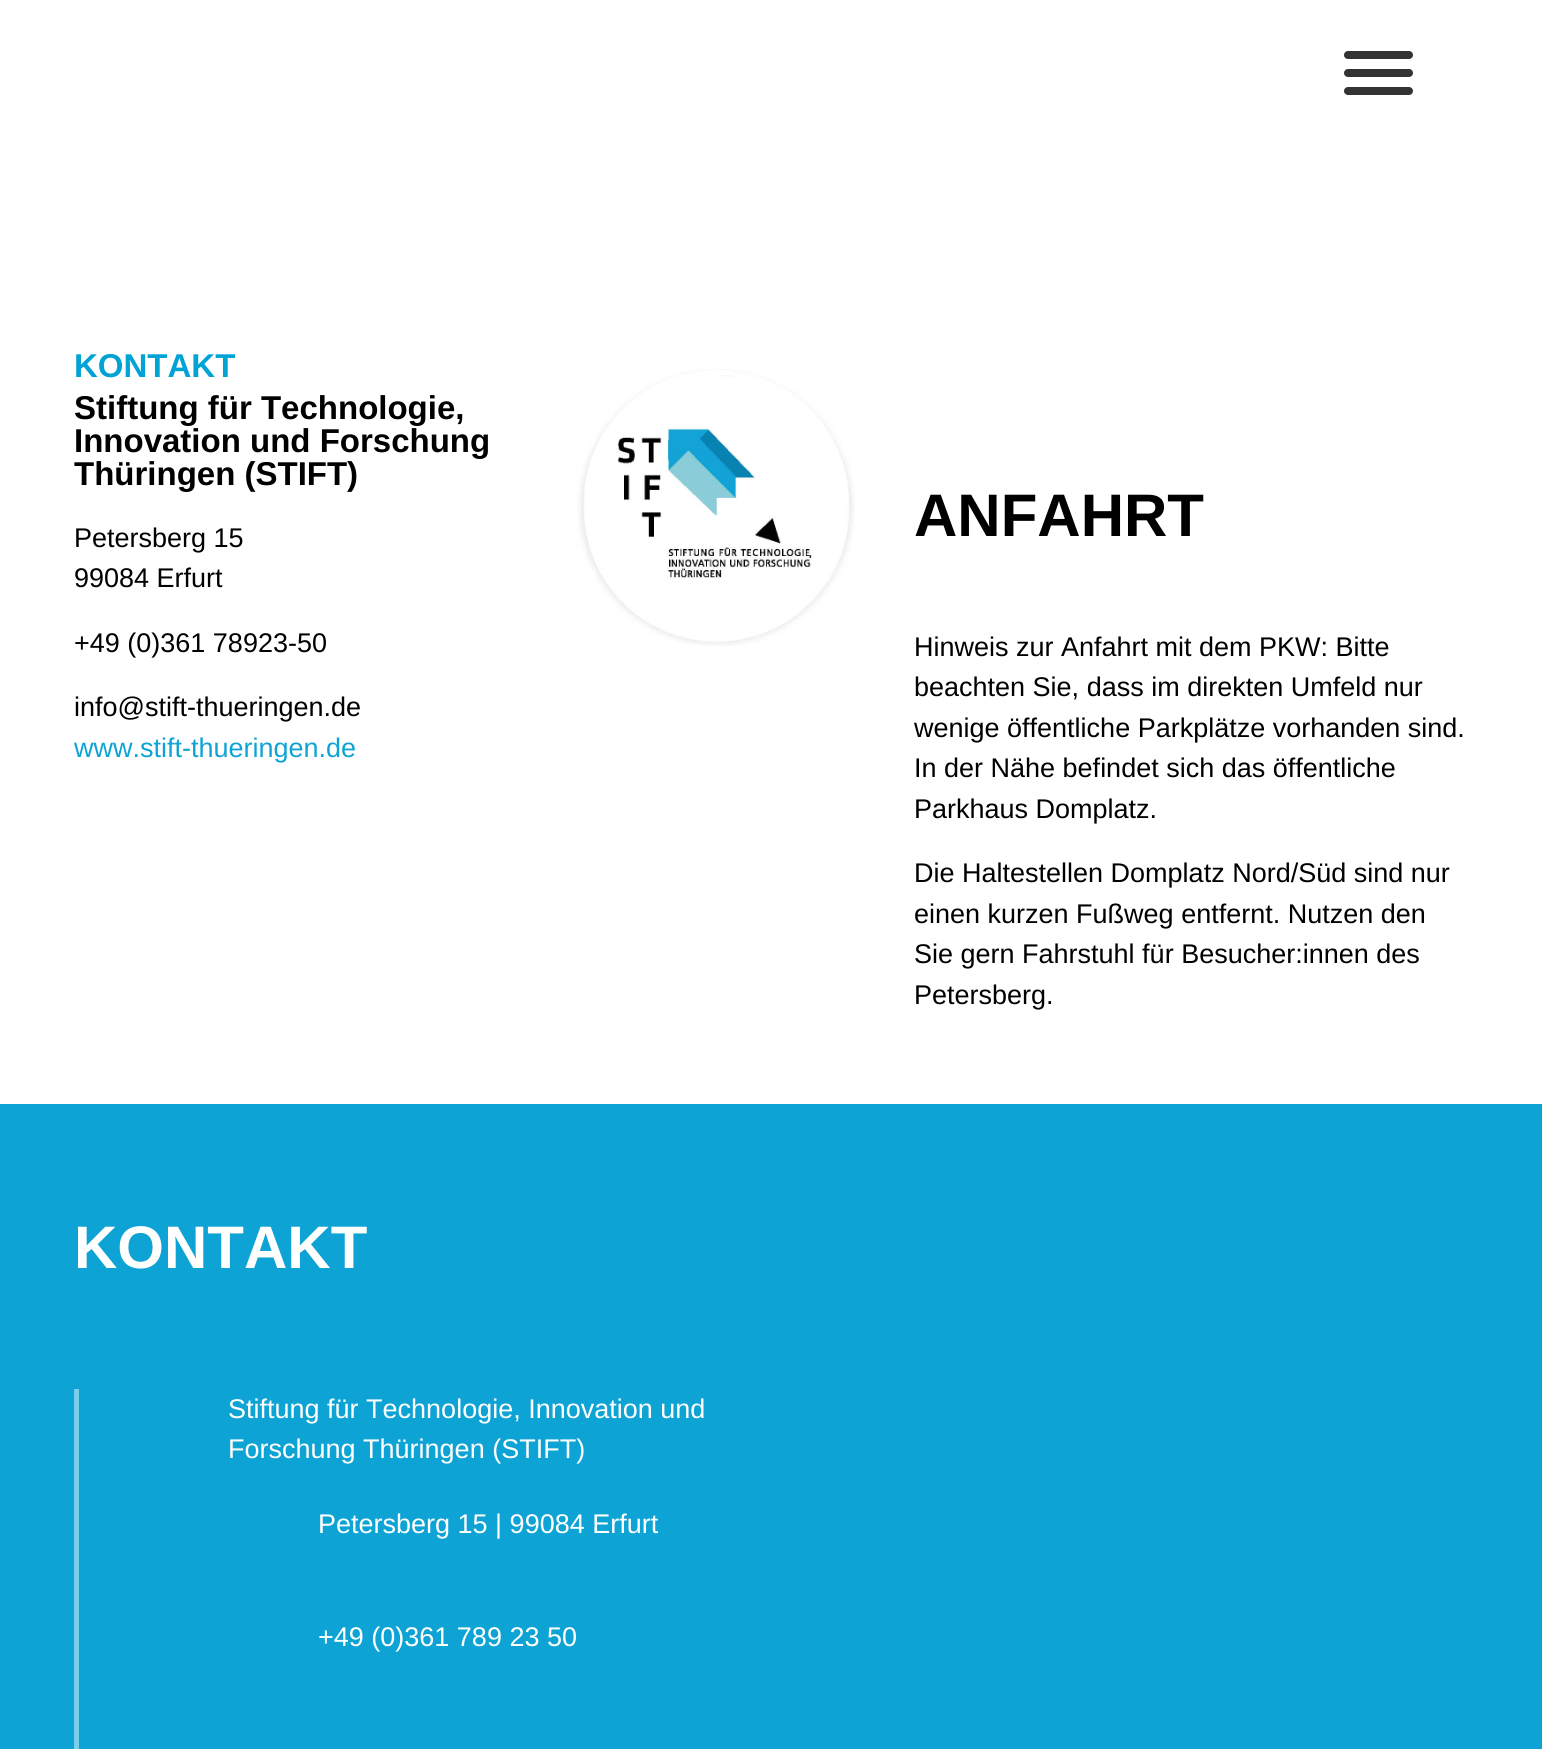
#include <cairo/cairo.h>
#include <math.h>
#include <stddef.h>

typedef struct { double x, y; const char *s; } line_t;
static cairo_t *cr;

static void rgb(unsigned color)
{
	cairo_set_source_rgb(cr, (color >> 16) / 255.0, (color >> 8 & 255) / 255.0, (color & 255) / 255.0);
}

static void rrect(double x, double y, double w, double h, double r)
{
	cairo_new_sub_path(cr);
	cairo_arc(cr, x + w - r, y + h - r, r, 0, M_PI / 2);
	cairo_arc(cr, x + r, y + h - r, r, M_PI / 2, M_PI);
	cairo_arc(cr, x + r, y + r, r, M_PI, 1.5 * M_PI);
	cairo_arc(cr, x + w - r, y + r, r, 1.5 * M_PI, 2 * M_PI);
	cairo_close_path(cr);
}

static void image(const char *path, double x, double y, double w, double h)
{
	cairo_surface_t *image = cairo_image_surface_create_from_png(path);
	cairo_save(cr);
	cairo_set_source_surface(cr, image, x, y);
	cairo_rectangle(cr, x, y, w, h);
	cairo_fill(cr);
	cairo_restore(cr);
	cairo_surface_destroy(image);
}

int main(void) {
	cairo_surface_t *surface = cairo_image_surface_create(CAIRO_FORMAT_RGB24, 1542, 1749);
	cr = cairo_create(surface);
	cairo_font_options_t *options = cairo_font_options_create();
	cairo_font_options_set_hint_metrics(options, CAIRO_HINT_METRICS_OFF);
	cairo_font_options_set_hint_style(options, CAIRO_HINT_STYLE_NONE);
	cairo_set_font_options(cr, options);
	cairo_set_miter_limit(cr, 4);
	rgb(0xffffff);
	cairo_paint(cr);
	rgb(0x343333);
	rrect(1344, 51, 69, 8, 4);
	cairo_fill(cr);
	rrect(1344, 69, 69, 8, 4);
	cairo_fill(cr);
	rrect(1344, 87, 69, 8, 4);
	cairo_fill(cr);
	image("img/1.png", 577, 369, 278, 277);
	rgb(0x0da4d5);
	cairo_rectangle(cr, 0, 1104, 1542, 645);
	cairo_fill(cr);
	rgb(0x79cee9);
	cairo_rectangle(cr, 74, 1389, 5, 360);
	cairo_fill(cr);
	cairo_select_font_face(cr, "Liberation Sans", CAIRO_FONT_SLANT_NORMAL, CAIRO_FONT_WEIGHT_BOLD);
	cairo_set_font_size(cr, 33);
	rgb(0x00a3d4);
	cairo_move_to(cr, 74, 377);
	cairo_show_text(cr, "KONTAKT");
	rgb(0x000000);
	{
		static const line_t items[] = {
			{74, 419, "Stiftung für Technologie,"},
			{74, 452, "Innovation und Forschung"},
			{74, 485, "Thüringen (STIFT)"},
		};
		for (size_t i = 0; i < sizeof items / sizeof *items; i++) {
			cairo_move_to(cr, items[i].x, items[i].y);
			cairo_show_text(cr, items[i].s);
		}
	}
	cairo_select_font_face(cr, "Liberation Sans", CAIRO_FONT_SLANT_NORMAL, CAIRO_FONT_WEIGHT_NORMAL);
	cairo_set_font_size(cr, 27);
	{
		static const line_t items[] = {
			{74, 547, "Petersberg 15"},
			{74, 587, "99084 Erfurt"},
			{74, 652, "+49 (0)361 78923-50"},
			{74, 716, "info@stift-thueringen.de"},
		};
		for (size_t i = 0; i < sizeof items / sizeof *items; i++) {
			cairo_move_to(cr, items[i].x, items[i].y);
			cairo_show_text(cr, items[i].s);
		}
	}
	rgb(0x0da4d5);
	cairo_move_to(cr, 74, 757);
	cairo_show_text(cr, "www.stift-thueringen.de");
	cairo_select_font_face(cr, "Liberation Sans", CAIRO_FONT_SLANT_NORMAL, CAIRO_FONT_WEIGHT_BOLD);
	cairo_set_font_size(cr, 60);
	rgb(0x000000);
	cairo_move_to(cr, 914, 536);
	cairo_show_text(cr, "ANFAHRT");
	cairo_select_font_face(cr, "Liberation Sans", CAIRO_FONT_SLANT_NORMAL, CAIRO_FONT_WEIGHT_NORMAL);
	cairo_set_font_size(cr, 27);
	{
		static const line_t items[] = {
			{914, 656, "Hinweis zur Anfahrt mit dem PKW: Bitte"},
			{914, 696, "beachten Sie, dass im direkten Umfeld nur"},
			{914, 737, "wenige öffentliche Parkplätze vorhanden sind."},
			{914, 777, "In der Nähe befindet sich das öffentliche"},
			{914, 818, "Parkhaus Domplatz."},
			{914, 882, "Die Haltestellen Domplatz Nord/Süd sind nur"},
			{914, 923, "einen kurzen Fußweg entfernt. Nutzen den"},
			{914, 963, "Sie gern Fahrstuhl für Besucher:innen des"},
			{914, 1004, "Petersberg."},
		};
		for (size_t i = 0; i < sizeof items / sizeof *items; i++) {
			cairo_move_to(cr, items[i].x, items[i].y);
			cairo_show_text(cr, items[i].s);
		}
	}
	cairo_select_font_face(cr, "Liberation Sans", CAIRO_FONT_SLANT_NORMAL, CAIRO_FONT_WEIGHT_BOLD);
	cairo_set_font_size(cr, 60);
	rgb(0xffffff);
	cairo_move_to(cr, 74, 1268);
	cairo_show_text(cr, "KONTAKT");
	cairo_select_font_face(cr, "Liberation Sans", CAIRO_FONT_SLANT_NORMAL, CAIRO_FONT_WEIGHT_NORMAL);
	cairo_set_font_size(cr, 27);
	{
		static const line_t items[] = {
			{228, 1418, "Stiftung für Technologie, Innovation und"},
			{228, 1458, "Forschung Thüringen (STIFT)"},
			{318, 1533, "Petersberg 15 | 99084 Erfurt"},
			{318, 1646, "+49 (0)361 789 23 50"},
		};
		for (size_t i = 0; i < sizeof items / sizeof *items; i++) {
			cairo_move_to(cr, items[i].x, items[i].y);
			cairo_show_text(cr, items[i].s);
		}
	}
	cairo_surface_write_to_png(surface, "page.png");
	cairo_font_options_destroy(options);
	cairo_destroy(cr);
	cairo_surface_destroy(surface);
	return 0;
}
